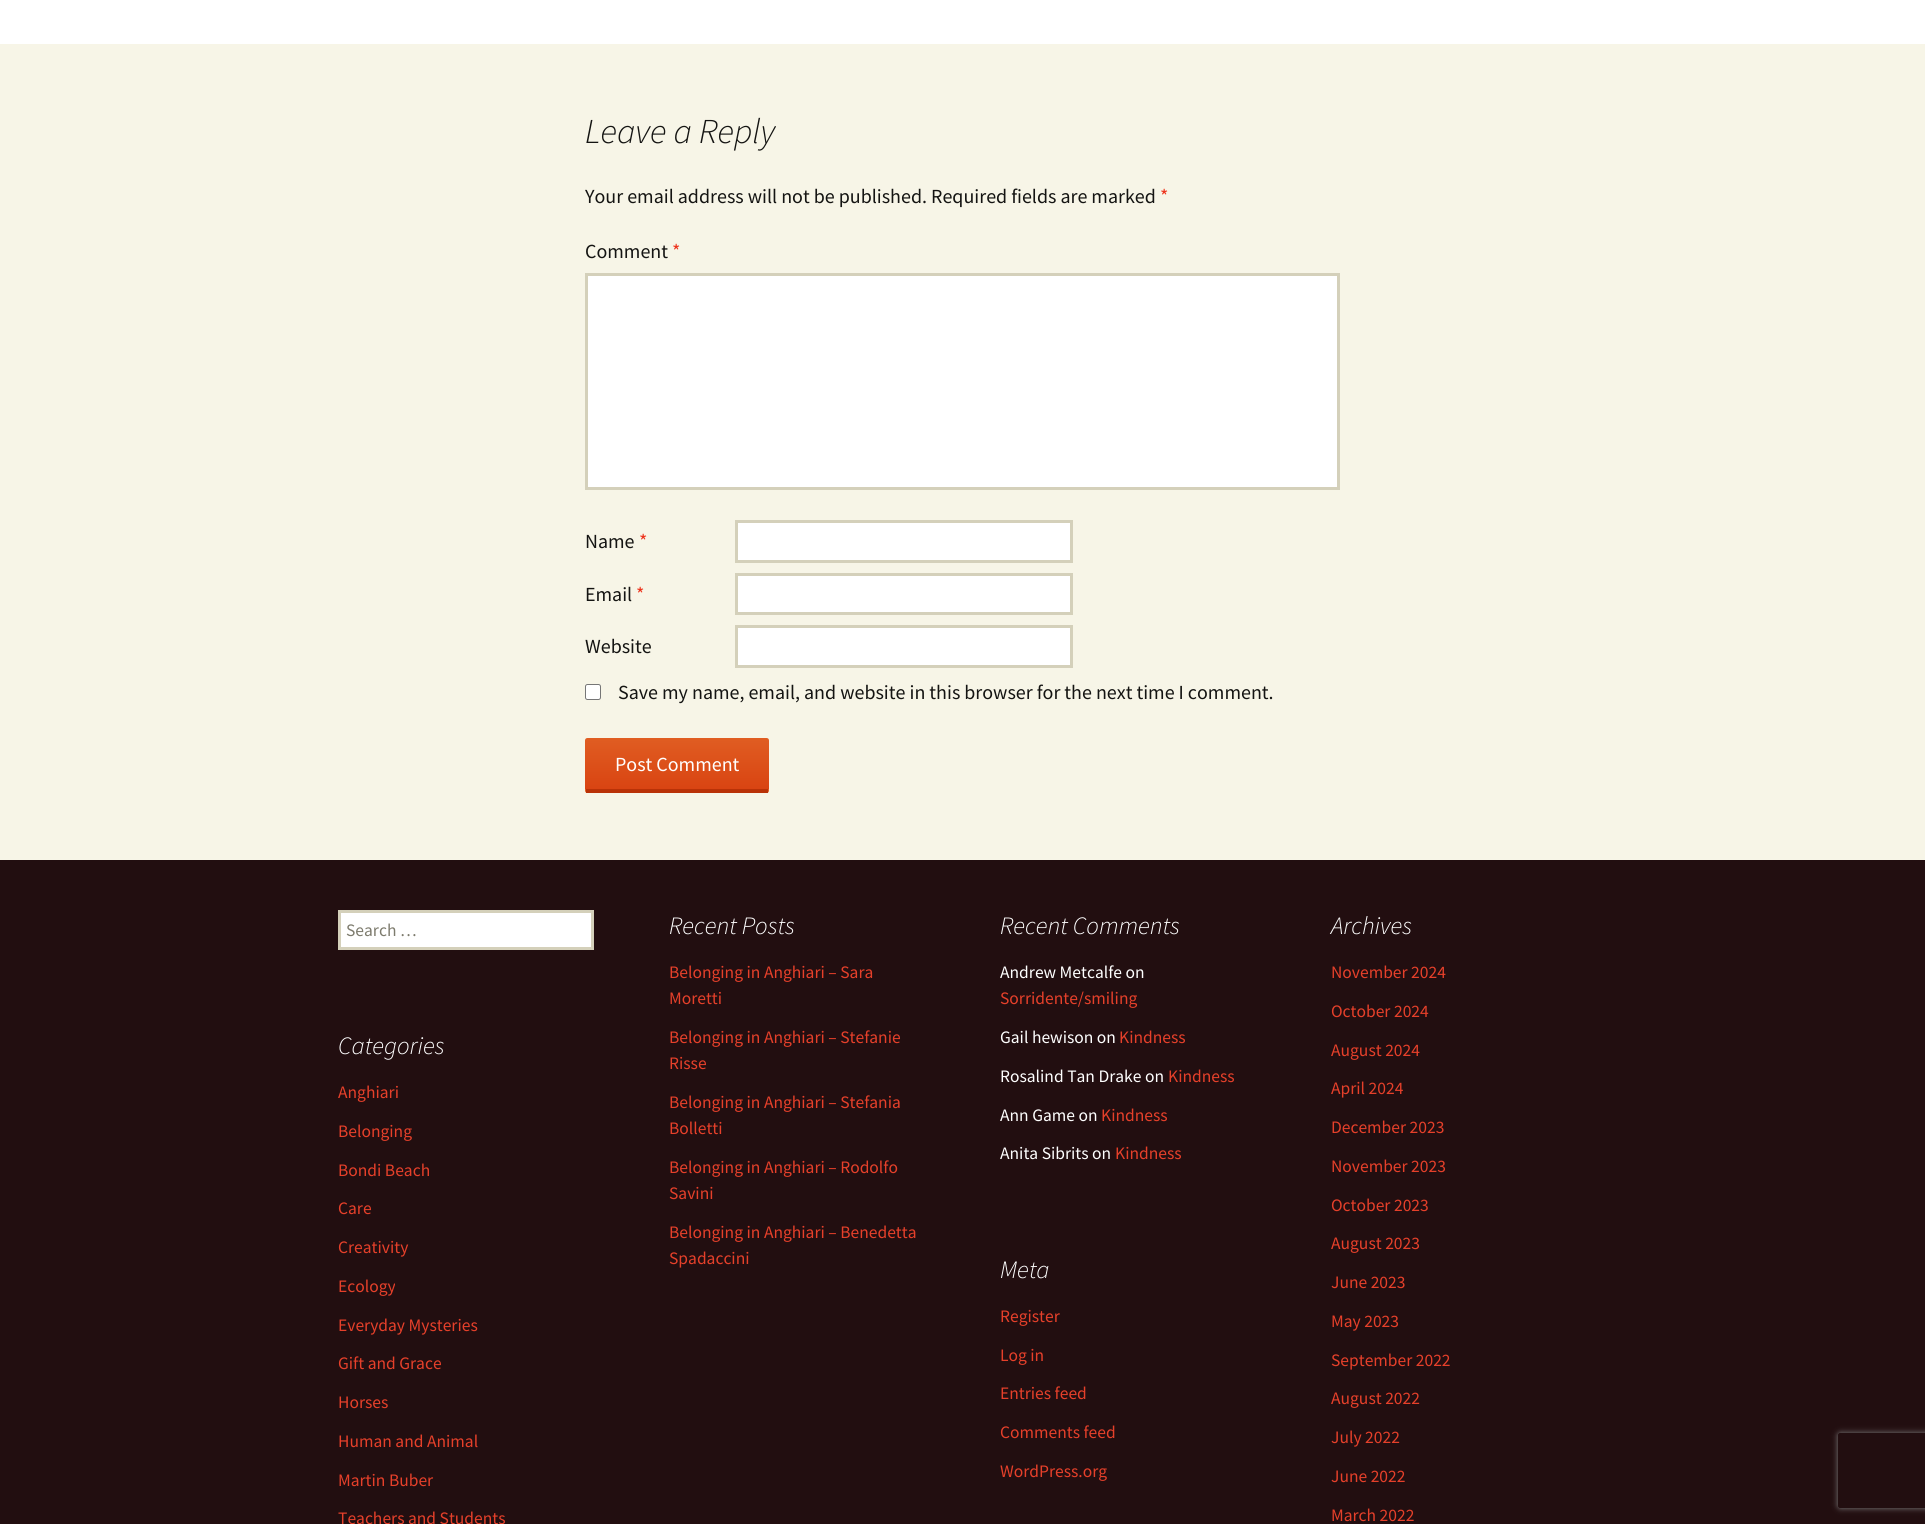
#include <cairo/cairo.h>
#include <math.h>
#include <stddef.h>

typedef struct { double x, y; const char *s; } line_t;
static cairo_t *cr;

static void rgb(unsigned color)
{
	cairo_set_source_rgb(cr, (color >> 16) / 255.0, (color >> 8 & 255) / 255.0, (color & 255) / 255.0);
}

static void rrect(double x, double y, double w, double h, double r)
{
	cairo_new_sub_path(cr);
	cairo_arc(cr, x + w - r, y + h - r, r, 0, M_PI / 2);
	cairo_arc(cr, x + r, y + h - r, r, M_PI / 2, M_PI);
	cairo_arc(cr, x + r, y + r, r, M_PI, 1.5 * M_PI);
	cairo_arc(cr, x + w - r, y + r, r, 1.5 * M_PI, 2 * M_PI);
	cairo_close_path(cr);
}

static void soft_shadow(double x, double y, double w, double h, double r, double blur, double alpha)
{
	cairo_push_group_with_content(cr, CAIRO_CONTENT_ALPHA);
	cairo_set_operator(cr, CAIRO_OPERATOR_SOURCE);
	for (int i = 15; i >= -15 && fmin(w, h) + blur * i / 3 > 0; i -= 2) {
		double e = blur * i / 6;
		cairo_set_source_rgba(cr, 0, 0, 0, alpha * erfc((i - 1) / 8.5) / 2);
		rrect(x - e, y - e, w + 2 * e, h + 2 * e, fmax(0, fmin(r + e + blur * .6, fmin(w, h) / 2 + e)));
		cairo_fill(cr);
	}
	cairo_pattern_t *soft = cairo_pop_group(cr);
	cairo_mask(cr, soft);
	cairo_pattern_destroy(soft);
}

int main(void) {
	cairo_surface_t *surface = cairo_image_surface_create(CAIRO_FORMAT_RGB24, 1925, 1524);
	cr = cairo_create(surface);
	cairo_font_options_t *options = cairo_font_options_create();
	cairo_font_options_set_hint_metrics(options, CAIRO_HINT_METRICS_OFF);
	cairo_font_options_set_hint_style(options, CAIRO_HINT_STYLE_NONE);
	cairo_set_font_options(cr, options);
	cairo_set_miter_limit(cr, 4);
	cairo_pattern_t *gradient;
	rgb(0x220e10);
	cairo_paint(cr);
	rgb(0xffffff);
	cairo_rectangle(cr, 0, 0, 1925, 44);
	cairo_fill(cr);
	rgb(0xf7f5e7);
	cairo_rectangle(cr, 0, 44, 1925, 816);
	cairo_fill(cr);
	rgb(0xffffff);
	cairo_rectangle(cr, 586.5, 274.5, 752, 214);
	cairo_fill_preserve(cr);
	rgb(0xd4d0ba);
	cairo_set_line_width(cr, 3);
	cairo_stroke(cr);
	rgb(0xffffff);
	cairo_rectangle(cr, 736.5, 521.5, 335, 40);
	cairo_fill_preserve(cr);
	rgb(0xd4d0ba);
	cairo_stroke(cr);
	rgb(0xffffff);
	cairo_rectangle(cr, 736.5, 574.5, 335, 39);
	cairo_fill_preserve(cr);
	rgb(0xd4d0ba);
	cairo_stroke(cr);
	rgb(0xffffff);
	cairo_rectangle(cr, 736.5, 626.5, 335, 40);
	cairo_fill_preserve(cr);
	rgb(0xd4d0ba);
	cairo_stroke(cr);
	rgb(0xffffff);
	rrect(585.5, 684.5, 15, 15, 2);
	cairo_fill_preserve(cr);
	rgb(0x767676);
	cairo_set_line_width(cr, 1);
	cairo_stroke(cr);
	gradient = cairo_pattern_create_linear(677, 738, 677, 789);
	cairo_pattern_add_color_stop_rgba(gradient, 0, 0.878, 0.365, 0.133, 1);
	cairo_pattern_add_color_stop_rgba(gradient, 1, 0.851, 0.267, 0.071, 1);
	cairo_set_source(cr, gradient);
	cairo_pattern_destroy(gradient);
	cairo_new_path(cr);
	cairo_move_to(cr, 587.5, 738);
	cairo_line_to(cr, 766.5, 738);
	cairo_curve_to(cr, 768, 738, 769, 739, 769, 740.5);
	cairo_line_to(cr, 769, 789);
	cairo_line_to(cr, 585, 789);
	cairo_line_to(cr, 585, 740.5);
	cairo_curve_to(cr, 585, 739, 586, 738, 587.5, 738);
	cairo_close_path(cr);
	cairo_fill(cr);
	gradient = cairo_pattern_create_linear(677, 789, 677, 840);
	cairo_pattern_add_color_stop_rgba(gradient, 0, 0.878, 0.365, 0.133, 1);
	cairo_pattern_add_color_stop_rgba(gradient, 1, 0.851, 0.267, 0.071, 1);
	cairo_set_source(cr, gradient);
	cairo_pattern_destroy(gradient);
	cairo_new_path(cr);
	cairo_move_to(cr, 585, 789);
	cairo_line_to(cr, 769, 789);
	cairo_line_to(cr, 769, 790.5);
	cairo_curve_to(cr, 769, 792, 768, 793, 766.5, 793);
	cairo_line_to(cr, 587.5, 793);
	cairo_curve_to(cr, 586, 793, 585, 792, 585, 790.5);
	cairo_close_path(cr);
	cairo_fill(cr);
	rgb(0xb93207);
	cairo_rectangle(cr, 586, 789, 182, 4);
	cairo_fill(cr);
	rgb(0xffffff);
	cairo_rectangle(cr, 339.5, 911.5, 253, 37);
	cairo_fill_preserve(cr);
	rgb(0xd4d0ba);
	cairo_set_line_width(cr, 3);
	cairo_stroke(cr);
	cairo_save(cr);
	cairo_set_fill_rule(cr, CAIRO_FILL_RULE_EVEN_ODD);
	cairo_new_path(cr);
	cairo_move_to(cr, 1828, 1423);
	cairo_line_to(cr, 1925, 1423);
	cairo_line_to(cr, 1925, 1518);
	cairo_line_to(cr, 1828, 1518);
	cairo_close_path(cr);
	cairo_move_to(cr, 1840.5, 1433);
	cairo_line_to(cr, 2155.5, 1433);
	cairo_curve_to(cr, 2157, 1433, 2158, 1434, 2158, 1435.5);
	cairo_line_to(cr, 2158, 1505.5);
	cairo_curve_to(cr, 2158, 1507, 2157, 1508, 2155.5, 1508);
	cairo_line_to(cr, 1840.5, 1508);
	cairo_curve_to(cr, 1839, 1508, 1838, 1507, 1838, 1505.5);
	cairo_line_to(cr, 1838, 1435.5);
	cairo_curve_to(cr, 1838, 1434, 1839, 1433, 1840.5, 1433);
	cairo_close_path(cr);
	cairo_clip(cr);
	rgb(0x808080);
	soft_shadow(1838, 1433, 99, 75, 2.5, 3, 1);
	cairo_restore(cr);
	cairo_select_font_face(cr, "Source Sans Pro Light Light", CAIRO_FONT_SLANT_ITALIC, CAIRO_FONT_WEIGHT_NORMAL);
	cairo_set_font_size(cr, 35);
	rgb(0x141412);
	cairo_move_to(cr, 585, 143);
	cairo_show_text(cr, "Leave a Reply");
	cairo_select_font_face(cr, "Source Sans Pro", CAIRO_FONT_SLANT_NORMAL, CAIRO_FONT_WEIGHT_NORMAL);
	cairo_set_font_size(cr, 20);
	cairo_move_to(cr, 585, 203);
	cairo_show_text(cr, "Your email address will not be published. Required fields are marked");
	rgb(0xed331c);
	cairo_move_to(cr, 1160, 203);
	cairo_show_text(cr, "*");
	rgb(0x141412);
	cairo_move_to(cr, 585, 258);
	cairo_show_text(cr, "Comment");
	rgb(0xed331c);
	cairo_move_to(cr, 672, 258);
	cairo_show_text(cr, "*");
	rgb(0x141412);
	cairo_move_to(cr, 585, 548);
	cairo_show_text(cr, "Name");
	rgb(0xed331c);
	cairo_move_to(cr, 639, 548);
	cairo_show_text(cr, "*");
	rgb(0x141412);
	cairo_move_to(cr, 585, 601);
	cairo_show_text(cr, "Email");
	rgb(0xed331c);
	cairo_move_to(cr, 636, 601);
	cairo_show_text(cr, "*");
	rgb(0x141412);
	cairo_move_to(cr, 585, 653);
	cairo_show_text(cr, "Website");
	cairo_move_to(cr, 618, 699);
	cairo_show_text(cr, "Save my name, email, and website in this browser for the next time I comment.");
	rgb(0xffffff);
	cairo_move_to(cr, 615, 771);
	cairo_show_text(cr, "Post Comment");
	cairo_set_font_size(cr, 17.5);
	rgb(0x7d7b6d);
	cairo_move_to(cr, 346, 936);
	cairo_show_text(cr, "Search …");
	cairo_select_font_face(cr, "Source Sans Pro Light Light", CAIRO_FONT_SLANT_ITALIC, CAIRO_FONT_WEIGHT_NORMAL);
	cairo_set_font_size(cr, 25);
	rgb(0xffffff);
	cairo_move_to(cr, 669, 934);
	cairo_show_text(cr, "Recent Posts");
	cairo_select_font_face(cr, "Source Sans Pro", CAIRO_FONT_SLANT_NORMAL, CAIRO_FONT_WEIGHT_NORMAL);
	cairo_set_font_size(cr, 17.5);
	rgb(0xe6402a);
	{
		static const line_t items[] = {
			{669, 978, "Belonging in Anghiari – Sara"},
			{669, 1004, "Moretti"},
			{669, 1043, "Belonging in Anghiari – Stefanie"},
			{669, 1069, "Risse"},
			{669, 1108, "Belonging in Anghiari – Stefania"},
			{669, 1134, "Bolletti"},
			{669, 1173, "Belonging in Anghiari – Rodolfo"},
			{669, 1199, "Savini"},
			{669, 1238, "Belonging in Anghiari – Benedetta"},
			{669, 1264, "Spadaccini"},
		};
		for (size_t i = 0; i < sizeof items / sizeof *items; i++) {
			cairo_move_to(cr, items[i].x, items[i].y);
			cairo_show_text(cr, items[i].s);
		}
	}
	cairo_select_font_face(cr, "Source Sans Pro Light Light", CAIRO_FONT_SLANT_ITALIC, CAIRO_FONT_WEIGHT_NORMAL);
	cairo_set_font_size(cr, 25);
	rgb(0xffffff);
	cairo_move_to(cr, 1000, 934);
	cairo_show_text(cr, "Recent Comments");
	cairo_select_font_face(cr, "Source Sans Pro", CAIRO_FONT_SLANT_NORMAL, CAIRO_FONT_WEIGHT_NORMAL);
	cairo_set_font_size(cr, 17.5);
	cairo_move_to(cr, 1000, 978);
	cairo_show_text(cr, "Andrew Metcalfe on");
	rgb(0xe6402a);
	cairo_move_to(cr, 1000, 1004);
	cairo_show_text(cr, "Sorridente/smiling");
	rgb(0xffffff);
	cairo_move_to(cr, 1000, 1043);
	cairo_show_text(cr, "Gail hewison on");
	rgb(0xe6402a);
	cairo_move_to(cr, 1119, 1043);
	cairo_show_text(cr, "Kindness");
	rgb(0xffffff);
	cairo_move_to(cr, 1000, 1082);
	cairo_show_text(cr, "Rosalind Tan Drake on");
	rgb(0xe6402a);
	cairo_move_to(cr, 1168, 1082);
	cairo_show_text(cr, "Kindness");
	rgb(0xffffff);
	cairo_move_to(cr, 1000, 1121);
	cairo_show_text(cr, "Ann Game on");
	rgb(0xe6402a);
	cairo_move_to(cr, 1101, 1121);
	cairo_show_text(cr, "Kindness");
	rgb(0xffffff);
	cairo_move_to(cr, 1000, 1159);
	cairo_show_text(cr, "Anita Sibrits on");
	rgb(0xe6402a);
	cairo_move_to(cr, 1115, 1159);
	cairo_show_text(cr, "Kindness");
	cairo_select_font_face(cr, "Source Sans Pro Light Light", CAIRO_FONT_SLANT_ITALIC, CAIRO_FONT_WEIGHT_NORMAL);
	cairo_set_font_size(cr, 25);
	rgb(0xffffff);
	cairo_move_to(cr, 1331, 934);
	cairo_show_text(cr, "Archives");
	cairo_select_font_face(cr, "Source Sans Pro", CAIRO_FONT_SLANT_NORMAL, CAIRO_FONT_WEIGHT_NORMAL);
	cairo_set_font_size(cr, 17.5);
	rgb(0xe6402a);
	{
		static const line_t items[] = {
			{1331, 978, "November 2024"},
			{1331, 1017, "October 2024"},
			{1331, 1056, "August 2024"},
			{1331, 1094, "April 2024"},
			{1331, 1133, "December 2023"},
			{1331, 1172, "November 2023"},
			{1331, 1211, "October 2023"},
			{1331, 1249, "August 2023"},
			{1331, 1288, "June 2023"},
			{1331, 1327, "May 2023"},
			{1331, 1366, "September 2022"},
			{1331, 1404, "August 2022"},
			{1331, 1443, "July 2022"},
			{1331, 1482, "June 2022"},
			{1331, 1521, "March 2022"},
		};
		for (size_t i = 0; i < sizeof items / sizeof *items; i++) {
			cairo_move_to(cr, items[i].x, items[i].y);
			cairo_show_text(cr, items[i].s);
		}
	}
	cairo_select_font_face(cr, "Source Sans Pro Light Light", CAIRO_FONT_SLANT_ITALIC, CAIRO_FONT_WEIGHT_NORMAL);
	cairo_set_font_size(cr, 25);
	rgb(0xffffff);
	cairo_move_to(cr, 338, 1054);
	cairo_show_text(cr, "Categories");
	cairo_select_font_face(cr, "Source Sans Pro", CAIRO_FONT_SLANT_NORMAL, CAIRO_FONT_WEIGHT_NORMAL);
	cairo_set_font_size(cr, 17.5);
	rgb(0xe6402a);
	{
		static const line_t items[] = {
			{338, 1098, "Anghiari"},
			{338, 1137, "Belonging"},
			{338, 1176, "Bondi Beach"},
			{338, 1214, "Care"},
			{338, 1253, "Creativity"},
			{338, 1292, "Ecology"},
			{338, 1331, "Everyday Mysteries"},
			{338, 1369, "Gift and Grace"},
			{338, 1408, "Horses"},
			{338, 1447, "Human and Animal"},
			{338, 1486, "Martin Buber"},
			{338, 1524, "Teachers and Students"},
		};
		for (size_t i = 0; i < sizeof items / sizeof *items; i++) {
			cairo_move_to(cr, items[i].x, items[i].y);
			cairo_show_text(cr, items[i].s);
		}
	}
	cairo_select_font_face(cr, "Source Sans Pro Light Light", CAIRO_FONT_SLANT_ITALIC, CAIRO_FONT_WEIGHT_NORMAL);
	cairo_set_font_size(cr, 25);
	rgb(0xffffff);
	cairo_move_to(cr, 1000, 1278);
	cairo_show_text(cr, "Meta");
	cairo_select_font_face(cr, "Source Sans Pro", CAIRO_FONT_SLANT_NORMAL, CAIRO_FONT_WEIGHT_NORMAL);
	cairo_set_font_size(cr, 17.5);
	rgb(0xe6402a);
	{
		static const line_t items[] = {
			{1000, 1322, "Register"},
			{1000, 1361, "Log in"},
			{1000, 1399, "Entries feed"},
			{1000, 1438, "Comments feed"},
			{1000, 1477, "WordPress.org"},
		};
		for (size_t i = 0; i < sizeof items / sizeof *items; i++) {
			cairo_move_to(cr, items[i].x, items[i].y);
			cairo_show_text(cr, items[i].s);
		}
	}
	cairo_surface_write_to_png(surface, "page.png");
	cairo_font_options_destroy(options);
	cairo_destroy(cr);
	cairo_surface_destroy(surface);
	return 0;
}
